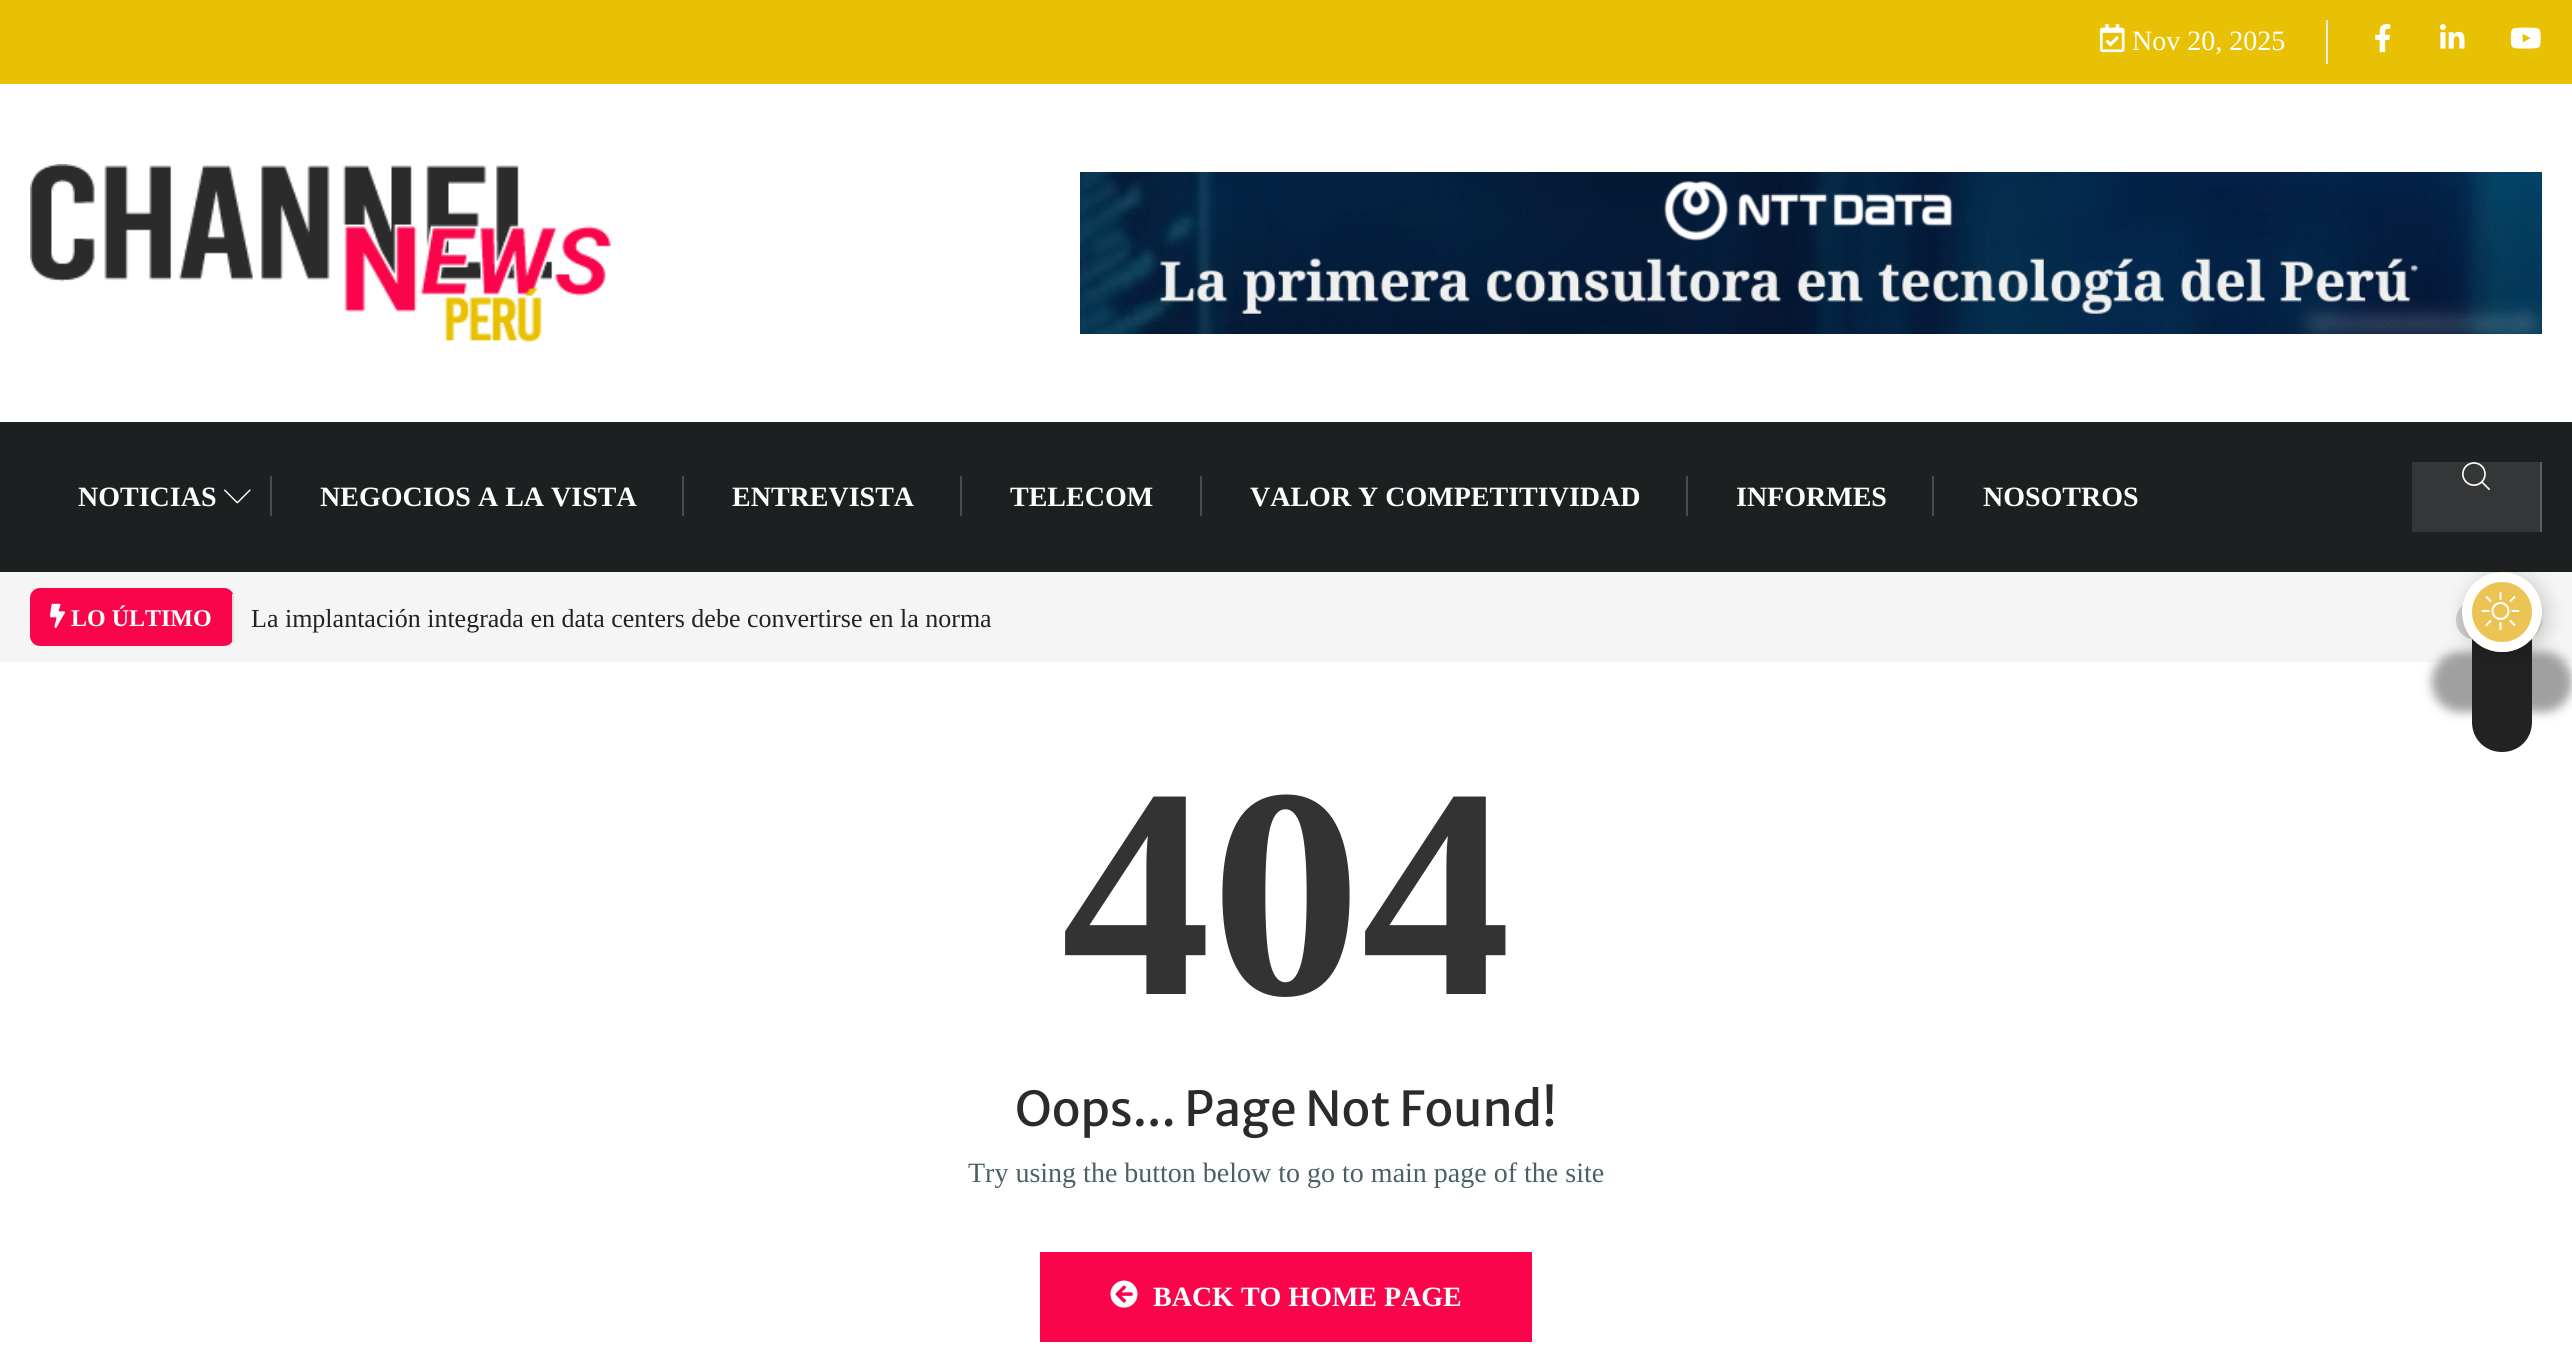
#include <cairo/cairo.h>
#include <math.h>
#include <stddef.h>

typedef struct { double x, y; const char *s; } line_t;
typedef struct { double x, y, w, h; unsigned color; } box_t;
static cairo_t *cr;

static void rgb(unsigned color)
{
	cairo_set_source_rgb(cr, (color >> 16) / 255.0, (color >> 8 & 255) / 255.0, (color & 255) / 255.0);
}

static void rrect(double x, double y, double w, double h, double r)
{
	cairo_new_sub_path(cr);
	cairo_arc(cr, x + w - r, y + h - r, r, 0, M_PI / 2);
	cairo_arc(cr, x + r, y + h - r, r, M_PI / 2, M_PI);
	cairo_arc(cr, x + r, y + r, r, M_PI, 1.5 * M_PI);
	cairo_arc(cr, x + w - r, y + r, r, 1.5 * M_PI, 2 * M_PI);
	cairo_close_path(cr);
}

static void soft_shadow(double x, double y, double w, double h, double r, double blur, double alpha)
{
	cairo_push_group_with_content(cr, CAIRO_CONTENT_ALPHA);
	cairo_set_operator(cr, CAIRO_OPERATOR_SOURCE);
	for (int i = 15; i >= -15 && fmin(w, h) + blur * i / 3 > 0; i -= 2) {
		double e = blur * i / 6;
		cairo_set_source_rgba(cr, 0, 0, 0, alpha * erfc((i - 1) / 8.5) / 2);
		rrect(x - e, y - e, w + 2 * e, h + 2 * e, fmax(0, fmin(r + e + blur * .6, fmin(w, h) / 2 + e)));
		cairo_fill(cr);
	}
	cairo_pattern_t *soft = cairo_pop_group(cr);
	cairo_mask(cr, soft);
	cairo_pattern_destroy(soft);
}

static void image(const char *path, double x, double y, double w, double h)
{
	cairo_surface_t *image = cairo_image_surface_create_from_png(path);
	cairo_save(cr);
	cairo_set_source_surface(cr, image, x, y);
	cairo_rectangle(cr, x, y, w, h);
	cairo_fill(cr);
	cairo_restore(cr);
	cairo_surface_destroy(image);
}

int main(void) {
	cairo_surface_t *surface = cairo_image_surface_create(CAIRO_FORMAT_RGB24, 2572, 1363);
	cr = cairo_create(surface);
	cairo_font_options_t *options = cairo_font_options_create();
	cairo_font_options_set_hint_metrics(options, CAIRO_HINT_METRICS_OFF);
	cairo_font_options_set_hint_style(options, CAIRO_HINT_STYLE_NONE);
	cairo_set_font_options(cr, options);
	cairo_set_miter_limit(cr, 4);
	rgb(0xffffff);
	cairo_paint(cr);
	rgb(0xe8c104);
	cairo_rectangle(cr, 0, 0, 2572, 84);
	cairo_fill(cr);
	rgb(0xeaeaea);
	cairo_rectangle(cr, 2326, 20, 2, 44);
	cairo_fill(cr);
	image("img/1.png", 2100, 24, 25, 29);
	image("img/2.png", 2375, 24, 16, 29);
	image("img/3.png", 2440, 24, 25, 25);
	image("img/4.png", 2510, 27, 31, 22);
	image("img/5.png", 30, 164, 582, 178);
	image("img/6.png", 1080, 172, 1462, 162);
	rgb(0x1d2021);
	cairo_rectangle(cr, 0, 422, 2572, 150);
	cairo_fill(cr);
	image("img/7.png", 224, 489, 27, 15);
	{
		static const box_t items[] = {
			{270, 476, 2, 40, 0x4a4d4d},
			{682, 476, 2, 40, 0x4a4d4d},
			{960, 476, 2, 40, 0x4a4d4d},
			{1200, 476, 2, 40, 0x4a4d4d},
			{1686, 476, 2, 40, 0x4a4d4d},
			{1932, 476, 2, 40, 0x4a4d4d},
			{2412, 462, 128, 70, 0x343637},
			{2540, 462, 2, 70, 0x5d5e5f},
		};
		for (size_t i = 0; i < sizeof items / sizeof *items; i++) {
			rgb(items[i].color);
			cairo_rectangle(cr, items[i].x, items[i].y, items[i].w, items[i].h);
			cairo_fill(cr);
		}
	}
	image("img/8.png", 2462, 462, 28, 29);
	rgb(0xf5f5f5);
	cairo_rectangle(cr, 0, 572, 2572, 90);
	cairo_fill(cr);
	rgb(0xfa044b);
	rrect(30, 588, 204, 58, 10);
	cairo_fill(cr);
	rgb(0xdedbdb);
	cairo_rectangle(cr, 232, 594, 2, 48);
	cairo_fill(cr);
	image("img/9.png", 50, 603, 15, 25);
	rgb(0xcdcdcd);
	cairo_arc(cr, 2476, 620, 20, 0, 2 * M_PI);
	cairo_fill(cr);
	cairo_arc(cr, 2522, 620, 20, 0, 2 * M_PI);
	cairo_fill(cr);
	rgb(0xfa044b);
	cairo_rectangle(cr, 1040, 1252, 492, 90);
	cairo_fill(cr);
	image("img/10.png", 1110, 1280, 28, 28);
	rgb(0x777777);
	soft_shadow(2432, 652, 140, 60, 30, 5, 0.7);
	rgb(0x222222);
	cairo_new_path(cr);
	cairo_move_to(cr, 2532, 642);
	cairo_line_to(cr, 2532, 722);
	cairo_curve_to(cr, 2532, 739, 2519, 752, 2502, 752);
	cairo_curve_to(cr, 2485, 752, 2472, 739, 2472, 722);
	cairo_line_to(cr, 2472, 642);
	cairo_curve_to(cr, 2472, 625, 2485, 612, 2502, 612);
	cairo_curve_to(cr, 2519, 612, 2532, 625, 2532, 642);
	cairo_close_path(cr);
	cairo_fill(cr);
	rgb(0x000000);
	soft_shadow(2466, 576, 80, 80, 40, 10, 0.2);
	rgb(0xecc355);
	cairo_new_path(cr);
	cairo_move_to(cr, 2542, 612);
	cairo_curve_to(cr, 2542, 634, 2524, 652, 2502, 652);
	cairo_curve_to(cr, 2480, 652, 2462, 634, 2462, 612);
	cairo_curve_to(cr, 2462, 590, 2480, 572, 2502, 572);
	cairo_curve_to(cr, 2524, 572, 2542, 590, 2542, 612);
	cairo_close_path(cr);
	cairo_fill(cr);
	cairo_new_path(cr);
	cairo_move_to(cr, 2537, 612);
	cairo_curve_to(cr, 2537, 631.5, 2521.5, 647, 2502, 647);
	cairo_curve_to(cr, 2482.5, 647, 2467, 631.5, 2467, 612);
	cairo_curve_to(cr, 2467, 592.5, 2482.5, 577, 2502, 577);
	cairo_curve_to(cr, 2521.5, 577, 2537, 592.5, 2537, 612);
	cairo_close_path(cr);
	rgb(0xffffff);
	cairo_set_line_width(cr, 10);
	cairo_stroke(cr);
	image("img/11.png", 2481, 592, 39, 38);
	cairo_select_font_face(cr, "Liberation Serif", CAIRO_FONT_SLANT_NORMAL, CAIRO_FONT_WEIGHT_NORMAL);
	cairo_set_font_size(cr, 28);
	cairo_move_to(cr, 2132, 50);
	cairo_show_text(cr, "Nov 20, 2025");
	cairo_select_font_face(cr, "Liberation Serif", CAIRO_FONT_SLANT_NORMAL, CAIRO_FONT_WEIGHT_BOLD);
	{
		static const line_t items[] = {
			{78, 506, "NOTICIAS"},
			{320, 506, "NEGOCIOS A LA VISTA"},
			{732, 506, "ENTREVISTA"},
			{1010, 506, "TELECOM"},
			{1250, 506, "VALOR Y COMPETITIVIDAD"},
			{1736, 506, "INFORMES"},
			{1983, 506, "NOSOTROS"},
		};
		for (size_t i = 0; i < sizeof items / sizeof *items; i++) {
			cairo_move_to(cr, items[i].x, items[i].y);
			cairo_show_text(cr, items[i].s);
		}
	}
	cairo_set_font_size(cr, 24);
	cairo_move_to(cr, 71, 626);
	cairo_show_text(cr, "LO ÚLTIMO");
	cairo_select_font_face(cr, "Liberation Serif", CAIRO_FONT_SLANT_NORMAL, CAIRO_FONT_WEIGHT_NORMAL);
	cairo_set_font_size(cr, 26);
	rgb(0x222222);
	cairo_move_to(cr, 251, 627);
	cairo_show_text(cr, "La implantación integrada en data centers debe convertirse en la norma");
	cairo_select_font_face(cr, "Liberation Serif", CAIRO_FONT_SLANT_NORMAL, CAIRO_FONT_WEIGHT_BOLD);
	cairo_set_font_size(cr, 300);
	rgb(0x333333);
	cairo_move_to(cr, 1061, 994);
	cairo_show_text(cr, "404");
	cairo_select_font_face(cr, "Merriweather Sans", CAIRO_FONT_SLANT_NORMAL, CAIRO_FONT_WEIGHT_NORMAL);
	cairo_set_font_size(cr, 48);
	rgb(0x2b2b2b);
	cairo_move_to(cr, 1015, 1126);
	cairo_show_text(cr, "Oops... Page Not Found!");
	cairo_select_font_face(cr, "Liberation Serif", CAIRO_FONT_SLANT_NORMAL, CAIRO_FONT_WEIGHT_NORMAL);
	cairo_set_font_size(cr, 28);
	rgb(0x4a6163);
	cairo_move_to(cr, 968, 1182);
	cairo_show_text(cr, "Try using the button below to go to main page of the site");
	cairo_select_font_face(cr, "Liberation Serif", CAIRO_FONT_SLANT_NORMAL, CAIRO_FONT_WEIGHT_BOLD);
	rgb(0xffffff);
	cairo_move_to(cr, 1153, 1306);
	cairo_show_text(cr, "BACK TO HOME PAGE");
	cairo_surface_write_to_png(surface, "page.png");
	cairo_font_options_destroy(options);
	cairo_destroy(cr);
	cairo_surface_destroy(surface);
	return 0;
}
